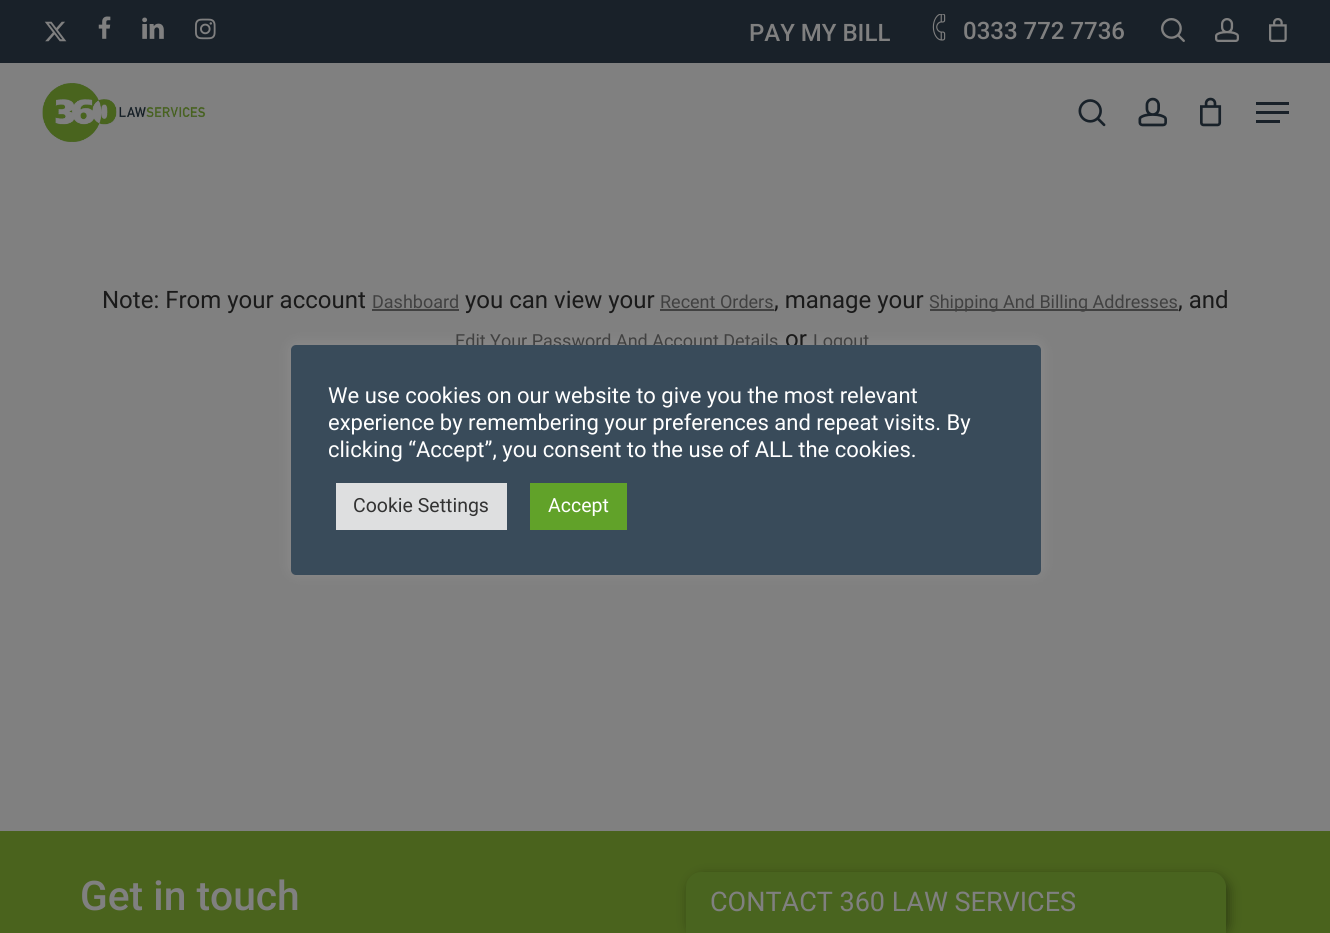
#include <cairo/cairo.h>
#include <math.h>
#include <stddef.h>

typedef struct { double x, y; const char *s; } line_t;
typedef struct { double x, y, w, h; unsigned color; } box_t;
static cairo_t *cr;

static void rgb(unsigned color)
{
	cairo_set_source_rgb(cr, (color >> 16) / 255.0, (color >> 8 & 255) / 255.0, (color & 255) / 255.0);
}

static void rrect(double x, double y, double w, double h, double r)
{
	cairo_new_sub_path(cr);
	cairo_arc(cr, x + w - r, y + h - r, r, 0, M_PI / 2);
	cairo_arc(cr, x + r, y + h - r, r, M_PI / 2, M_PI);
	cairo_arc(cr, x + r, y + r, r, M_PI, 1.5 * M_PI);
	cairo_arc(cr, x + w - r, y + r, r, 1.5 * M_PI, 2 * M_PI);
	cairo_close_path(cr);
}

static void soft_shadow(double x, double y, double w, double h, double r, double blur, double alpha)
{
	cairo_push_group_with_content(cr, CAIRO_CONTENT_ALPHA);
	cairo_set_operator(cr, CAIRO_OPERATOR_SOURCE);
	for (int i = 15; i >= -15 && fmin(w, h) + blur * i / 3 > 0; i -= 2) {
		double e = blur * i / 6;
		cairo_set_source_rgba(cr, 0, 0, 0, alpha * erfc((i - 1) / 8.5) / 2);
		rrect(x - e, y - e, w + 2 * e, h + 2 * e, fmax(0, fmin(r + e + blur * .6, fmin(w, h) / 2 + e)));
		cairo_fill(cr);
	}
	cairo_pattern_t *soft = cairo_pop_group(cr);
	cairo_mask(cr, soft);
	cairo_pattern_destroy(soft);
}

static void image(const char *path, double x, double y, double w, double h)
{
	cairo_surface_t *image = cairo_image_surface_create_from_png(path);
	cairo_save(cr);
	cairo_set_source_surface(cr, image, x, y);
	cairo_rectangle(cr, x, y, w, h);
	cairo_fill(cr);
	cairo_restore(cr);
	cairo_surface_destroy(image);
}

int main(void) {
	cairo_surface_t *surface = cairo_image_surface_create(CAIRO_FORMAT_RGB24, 1330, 933);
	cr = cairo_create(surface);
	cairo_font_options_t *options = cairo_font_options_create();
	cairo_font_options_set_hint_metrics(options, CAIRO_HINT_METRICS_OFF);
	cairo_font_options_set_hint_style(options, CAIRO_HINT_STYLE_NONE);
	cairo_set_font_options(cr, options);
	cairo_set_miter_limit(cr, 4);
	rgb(0x808080);
	cairo_paint(cr);
	rgb(0x192129);
	cairo_rectangle(cr, 0, 0, 1330, 63);
	cairo_fill(cr);
	image("img/1.png", 44, 21, 23, 21);
	image("img/2.png", 98, 16, 13, 23);
	image("img/3.png", 142, 17, 22, 22);
	image("img/4.png", 195, 18, 21, 22);
	image("img/5.png", 932, 14, 14, 27);
	image("img/6.png", 1161, 18, 24, 24);
	image("img/7.png", 1215, 18, 24, 24);
	image("img/8.png", 1269, 18, 18, 24);
	image("img/9.png", 42, 83, 164, 59);
	image("img/10.png", 1078, 99, 28, 28);
	image("img/11.png", 1138, 97, 29, 30);
	image("img/12.png", 1200, 97, 22, 30);
	{
		static const box_t items[] = {
			{1256, 102, 33, 3, 0x192129},
			{1256, 120, 24, 3, 0x192129},
			{1256, 111, 33, 3, 0x192129},
			{372, 309, 87, 2, 0x414141},
			{660, 309, 114, 2, 0x414141},
			{930, 309, 248, 2, 0x414141},
			{0, 831, 1330, 102, 0x4a631d},
		};
		for (size_t i = 0; i < sizeof items / sizeof *items; i++) {
			rgb(items[i].color);
			cairo_rectangle(cr, items[i].x, items[i].y, items[i].w, items[i].h);
			cairo_fill(cr);
		}
	}
	rgb(0x000000);
	soft_shadow(689, 876, 540, 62, 15, 6, 0.38);
	rgb(0x49641f);
	cairo_new_path(cr);
	cairo_move_to(cr, 701, 873);
	cairo_line_to(cr, 1211, 873);
	cairo_curve_to(cr, 1218.5, 873, 1225, 879.5, 1225, 887);
	cairo_line_to(cr, 1225, 932);
	cairo_line_to(cr, 687, 932);
	cairo_line_to(cr, 687, 887);
	cairo_curve_to(cr, 687, 879.5, 693.5, 873, 701, 873);
	cairo_close_path(cr);
	cairo_fill_preserve(cr);
	cairo_stroke(cr);
	rgb(0xacabab);
	soft_shadow(291, 344, 750, 229, 5, 7.5, 0.3);
	cairo_select_font_face(cr, "Roboto Medium", CAIRO_FONT_SLANT_NORMAL, CAIRO_FONT_WEIGHT_NORMAL);
	cairo_set_font_size(cr, 24);
	rgb(0x808080);
	cairo_move_to(cr, 749, 41);
	cairo_show_text(cr, "PAY MY BILL");
	cairo_move_to(cr, 963, 39);
	cairo_show_text(cr, "0333 772 7736");
	cairo_select_font_face(cr, "Roboto", CAIRO_FONT_SLANT_NORMAL, CAIRO_FONT_WEIGHT_NORMAL);
	rgb(0x1a1a1a);
	cairo_move_to(cr, 102, 308);
	cairo_show_text(cr, "Note: From your account");
	cairo_set_font_size(cr, 18);
	rgb(0x414141);
	cairo_move_to(cr, 372, 308);
	cairo_show_text(cr, "Dashboard");
	cairo_set_font_size(cr, 24);
	rgb(0x1a1a1a);
	cairo_move_to(cr, 465, 308);
	cairo_show_text(cr, "you can view your");
	cairo_set_font_size(cr, 18);
	rgb(0x414141);
	cairo_move_to(cr, 660, 308);
	cairo_show_text(cr, "Recent Orders");
	cairo_set_font_size(cr, 24);
	rgb(0x1a1a1a);
	cairo_move_to(cr, 774, 308);
	cairo_show_text(cr, ", manage your");
	cairo_set_font_size(cr, 18);
	rgb(0x414141);
	cairo_move_to(cr, 929, 308);
	cairo_show_text(cr, "Shipping And Billing Addresses");
	cairo_set_font_size(cr, 24);
	rgb(0x1a1a1a);
	cairo_move_to(cr, 1178, 308);
	cairo_show_text(cr, ", and");
	cairo_set_font_size(cr, 18);
	rgb(0x414141);
	cairo_move_to(cr, 455, 347);
	cairo_show_text(cr, "Edit Your Password And Account Details");
	cairo_set_font_size(cr, 24);
	rgb(0x1a1a1a);
	cairo_move_to(cr, 785, 347);
	cairo_show_text(cr, "or");
	cairo_set_font_size(cr, 18);
	rgb(0x414141);
	cairo_move_to(cr, 813, 347);
	cairo_show_text(cr, "Logout");
	cairo_select_font_face(cr, "Roboto Medium", CAIRO_FONT_SLANT_NORMAL, CAIRO_FONT_WEIGHT_NORMAL);
	cairo_set_font_size(cr, 40.75);
	rgb(0x808080);
	cairo_move_to(cr, 80, 910);
	cairo_show_text(cr, "Get in touch");
	cairo_select_font_face(cr, "Roboto", CAIRO_FONT_SLANT_NORMAL, CAIRO_FONT_WEIGHT_NORMAL);
	cairo_set_font_size(cr, 27);
	cairo_move_to(cr, 710, 911);
	cairo_show_text(cr, "CONTACT 360 LAW SERVICES");
	rgb(0x394b5a);
	rrect(291, 345, 750, 230, 5);
	cairo_fill(cr);
	cairo_set_font_size(cr, 22);
	rgb(0xffffff);
	{
		static const line_t items[] = {
			{328, 403, "We use cookies on our website to give you the most relevant"},
			{328, 430, "experience by remembering your preferences and repeat visits. By"},
			{328, 457, "clicking “Accept”, you consent to the use of ALL the cookies."},
		};
		for (size_t i = 0; i < sizeof items / sizeof *items; i++) {
			cairo_move_to(cr, items[i].x, items[i].y);
			cairo_show_text(cr, items[i].s);
		}
	}
	rgb(0xdedfe0);
	cairo_rectangle(cr, 336, 483, 171, 47);
	cairo_fill(cr);
	cairo_set_font_size(cr, 19.5);
	rgb(0x333333);
	cairo_move_to(cr, 353, 512);
	cairo_show_text(cr, "Cookie Settings");
	rgb(0x61a229);
	cairo_rectangle(cr, 530, 483, 97, 47);
	cairo_fill(cr);
	rgb(0xffffff);
	cairo_move_to(cr, 548, 512);
	cairo_show_text(cr, "Accept");
	cairo_surface_write_to_png(surface, "page.png");
	cairo_font_options_destroy(options);
	cairo_destroy(cr);
	cairo_surface_destroy(surface);
	return 0;
}
